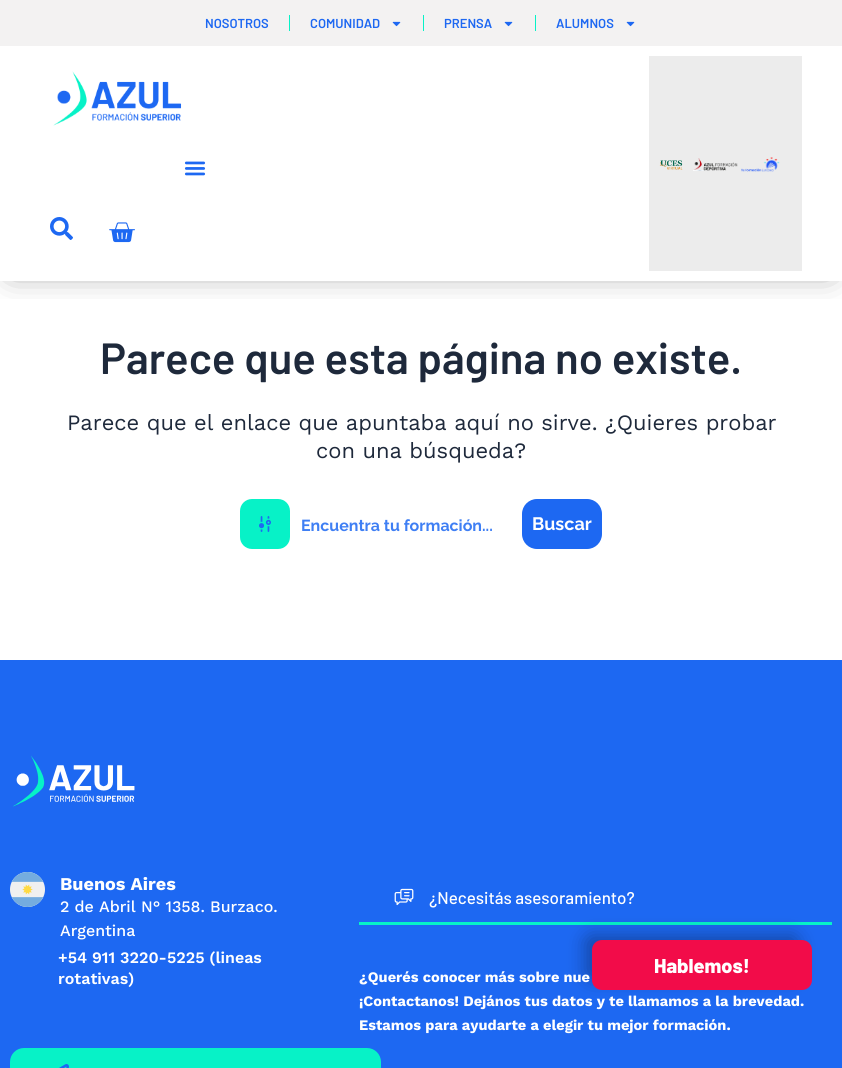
#include <cairo/cairo.h>
#include <math.h>
#include <stddef.h>

typedef struct { double x, y; const char *s; } line_t;
static cairo_t *cr;

static void rgb(unsigned color)
{
	cairo_set_source_rgb(cr, (color >> 16) / 255.0, (color >> 8 & 255) / 255.0, (color & 255) / 255.0);
}

static void rrect(double x, double y, double w, double h, double r)
{
	cairo_new_sub_path(cr);
	cairo_arc(cr, x + w - r, y + h - r, r, 0, M_PI / 2);
	cairo_arc(cr, x + r, y + h - r, r, M_PI / 2, M_PI);
	cairo_arc(cr, x + r, y + r, r, M_PI, 1.5 * M_PI);
	cairo_arc(cr, x + w - r, y + r, r, 1.5 * M_PI, 2 * M_PI);
	cairo_close_path(cr);
}

static void soft_shadow(double x, double y, double w, double h, double r, double blur, double alpha)
{
	cairo_push_group_with_content(cr, CAIRO_CONTENT_ALPHA);
	cairo_set_operator(cr, CAIRO_OPERATOR_SOURCE);
	for (int i = 15; i >= -15 && fmin(w, h) + blur * i / 3 > 0; i -= 2) {
		double e = blur * i / 6;
		cairo_set_source_rgba(cr, 0, 0, 0, alpha * erfc((i - 1) / 8.5) / 2);
		rrect(x - e, y - e, w + 2 * e, h + 2 * e, fmax(0, fmin(r + e + blur * .6, fmin(w, h) / 2 + e)));
		cairo_fill(cr);
	}
	cairo_pattern_t *soft = cairo_pop_group(cr);
	cairo_mask(cr, soft);
	cairo_pattern_destroy(soft);
}

static void image(const char *path, double x, double y, double w, double h)
{
	cairo_surface_t *image = cairo_image_surface_create_from_png(path);
	cairo_save(cr);
	cairo_set_source_surface(cr, image, x, y);
	cairo_rectangle(cr, x, y, w, h);
	cairo_fill(cr);
	cairo_restore(cr);
	cairo_surface_destroy(image);
}

int main(void) {
	cairo_surface_t *surface = cairo_image_surface_create(CAIRO_FORMAT_RGB24, 842, 1068);
	cr = cairo_create(surface);
	cairo_font_options_t *options = cairo_font_options_create();
	cairo_font_options_set_hint_metrics(options, CAIRO_HINT_METRICS_OFF);
	cairo_font_options_set_hint_style(options, CAIRO_HINT_STYLE_NONE);
	cairo_set_font_options(cr, options);
	cairo_set_miter_limit(cr, 4);
	rgb(0xffffff);
	cairo_paint(cr);
	cairo_save(cr);
	cairo_rectangle(cr, 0, 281, 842, 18);
	cairo_clip(cr);
	rgb(0x000000);
	soft_shadow(12, 12, 818, 257, 0, 17, 0.5);
	cairo_restore(cr);
	rgb(0xf3f2f2);
	cairo_rectangle(cr, 0, 0, 842, 46);
	cairo_fill(cr);
	rgb(0x07f2c7);
	cairo_rectangle(cr, 289, 15, 1, 16);
	cairo_fill(cr);
	image("img/1.png", 392, 21, 9, 6);
	cairo_rectangle(cr, 423, 15, 1, 16);
	cairo_fill(cr);
	image("img/1.png", 504, 21, 9, 6);
	cairo_rectangle(cr, 535, 15, 1, 16);
	cairo_fill(cr);
	image("img/1.png", 626, 21, 9, 6);
	image("img/2.png", 53, 71, 129, 55);
	image("img/3.png", 184, 161, 22, 15);
	image("img/4.png", 50, 217, 23, 23);
	image("img/5.png", 109, 222, 26, 21);
	rgb(0xececec);
	cairo_rectangle(cr, 649, 56, 153, 215);
	cairo_fill(cr);
	image("img/6.png", 659, 160, 24, 10);
	image("img/7.png", 693, 158, 45, 13);
	image("img/8.png", 741, 157, 39, 15);
	rgb(0x07f2c7);
	rrect(240, 499, 50, 50, 12);
	cairo_fill(cr);
	image("img/9.png", 259, 516, 12, 16);
	rgb(0x1d68f2);
	rrect(522, 499, 80, 50, 15);
	cairo_fill(cr);
	cairo_rectangle(cr, 0, 660, 842, 408);
	cairo_fill(cr);
	image("img/10.png", 13, 755, 122, 52);
	image("img/11.png", 10, 872, 35, 35);
	rgb(0x07f2c7);
	rrect(10, 1048, 371, 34, 14);
	cairo_fill(cr);
	image("img/12.png", 59, 1064, 10, 4);
	cairo_rectangle(cr, 359, 922, 473, 3);
	cairo_fill(cr);
	image("img/13.png", 394, 888, 20, 18);
	rgb(0x000000);
	soft_shadow(585, 935, 214, 44, 7, 9, 0.3);
	rgb(0xf20c49);
	rrect(592, 940, 220, 50, 10);
	cairo_fill(cr);
	cairo_select_font_face(cr, "Barlow SemiBold", CAIRO_FONT_SLANT_NORMAL, CAIRO_FONT_WEIGHT_NORMAL);
	cairo_set_font_size(cr, 13);
	rgb(0x1d68f2);
	{
		static const line_t items[] = {
			{205, 28, "NOSOTROS"},
			{310, 28, "COMUNIDAD"},
			{444, 28, "PRENSA"},
			{556, 28, "ALUMNOS"},
		};
		for (size_t i = 0; i < sizeof items / sizeof *items; i++) {
			cairo_move_to(cr, items[i].x, items[i].y);
			cairo_show_text(cr, items[i].s);
		}
	}
	cairo_set_font_size(cr, 43.6);
	rgb(0x1e293b);
	cairo_move_to(cr, 100, 374);
	cairo_show_text(cr, "Parece que esta página no existe.");
	cairo_select_font_face(cr, "Work Sans", CAIRO_FONT_SLANT_NORMAL, CAIRO_FONT_WEIGHT_NORMAL);
	cairo_set_font_size(cr, 21.9);
	cairo_move_to(cr, 67, 430);
	cairo_show_text(cr, "Parece que el enlace que apuntaba aquí no sirve. ¿Quieres probar");
	cairo_move_to(cr, 316, 458);
	cairo_show_text(cr, "con una búsqueda?");
	cairo_select_font_face(cr, "Raleway Thin", CAIRO_FONT_SLANT_NORMAL, CAIRO_FONT_WEIGHT_NORMAL);
	cairo_set_font_size(cr, 16);
	rgb(0x3f7ff4);
	cairo_move_to(cr, 301, 531);
	cairo_show_text(cr, "Encuentra tu formación...");
	cairo_set_font_size(cr, 18);
	rgb(0xffffff);
	cairo_move_to(cr, 532, 530);
	cairo_show_text(cr, "Buscar");
	cairo_select_font_face(cr, "Work Sans", CAIRO_FONT_SLANT_NORMAL, CAIRO_FONT_WEIGHT_BOLD);
	cairo_move_to(cr, 60, 890);
	cairo_show_text(cr, "Buenos Aires");
	cairo_select_font_face(cr, "Work Sans Medium", CAIRO_FONT_SLANT_NORMAL, CAIRO_FONT_WEIGHT_NORMAL);
	cairo_set_font_size(cr, 16);
	cairo_move_to(cr, 60, 912);
	cairo_show_text(cr, "2 de Abril N° 1358. Burzaco.");
	cairo_move_to(cr, 60, 936);
	cairo_show_text(cr, "Argentina");
	cairo_select_font_face(cr, "Work Sans SemiBold", CAIRO_FONT_SLANT_NORMAL, CAIRO_FONT_WEIGHT_NORMAL);
	cairo_move_to(cr, 58, 963);
	cairo_show_text(cr, "+54 911 3220-5225 (lineas");
	cairo_move_to(cr, 58, 984);
	cairo_show_text(cr, "rotativas)");
	cairo_select_font_face(cr, "Barlow Medium", CAIRO_FONT_SLANT_NORMAL, CAIRO_FONT_WEIGHT_NORMAL);
	cairo_set_font_size(cr, 17);
	cairo_move_to(cr, 429, 904);
	cairo_show_text(cr, "¿Necesitás asesoramiento?");
	cairo_select_font_face(cr, "Work Sans", CAIRO_FONT_SLANT_NORMAL, CAIRO_FONT_WEIGHT_BOLD);
	cairo_set_font_size(cr, 14.6);
	{
		static const line_t items[] = {
			{359, 982, "¿Querés conocer más sobre nue"},
			{359, 1006, "¡Contactanos! Dejános tus datos y te llamamos a la brevedad."},
			{359, 1030, "Estamos para ayudarte a elegir tu mejor formación."},
		};
		for (size_t i = 0; i < sizeof items / sizeof *items; i++) {
			cairo_move_to(cr, items[i].x, items[i].y);
			cairo_show_text(cr, items[i].s);
		}
	}
	cairo_select_font_face(cr, "Barlow ExtraBold", CAIRO_FONT_SLANT_NORMAL, CAIRO_FONT_WEIGHT_NORMAL);
	cairo_set_font_size(cr, 20);
	cairo_move_to(cr, 654, 973);
	cairo_show_text(cr, "Hablemos!");
	cairo_surface_write_to_png(surface, "page.png");
	cairo_font_options_destroy(options);
	cairo_destroy(cr);
	cairo_surface_destroy(surface);
	return 0;
}
